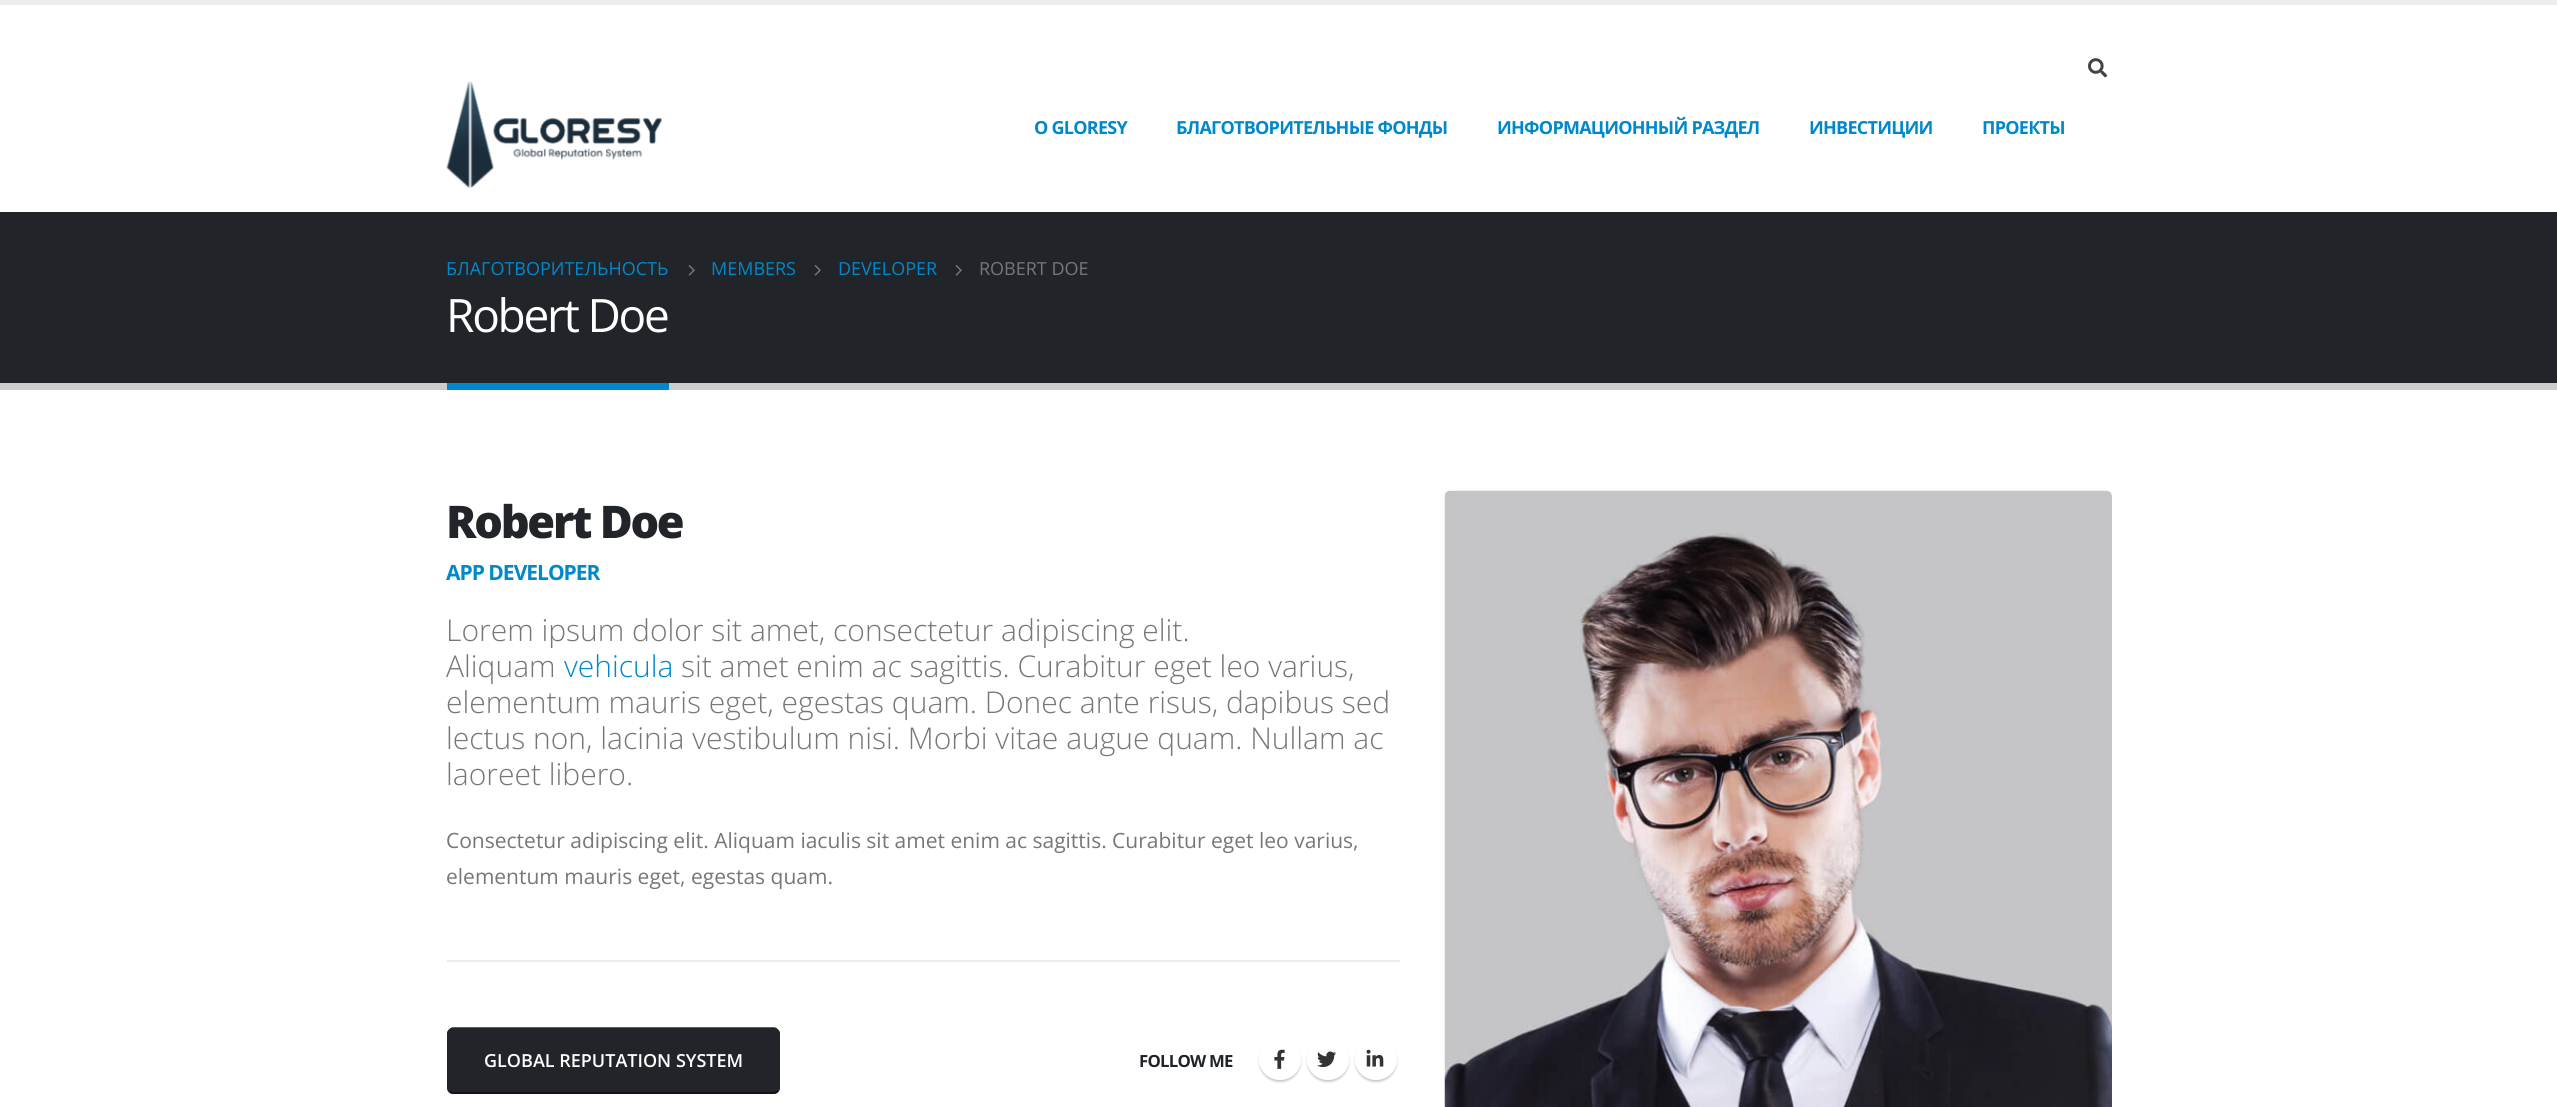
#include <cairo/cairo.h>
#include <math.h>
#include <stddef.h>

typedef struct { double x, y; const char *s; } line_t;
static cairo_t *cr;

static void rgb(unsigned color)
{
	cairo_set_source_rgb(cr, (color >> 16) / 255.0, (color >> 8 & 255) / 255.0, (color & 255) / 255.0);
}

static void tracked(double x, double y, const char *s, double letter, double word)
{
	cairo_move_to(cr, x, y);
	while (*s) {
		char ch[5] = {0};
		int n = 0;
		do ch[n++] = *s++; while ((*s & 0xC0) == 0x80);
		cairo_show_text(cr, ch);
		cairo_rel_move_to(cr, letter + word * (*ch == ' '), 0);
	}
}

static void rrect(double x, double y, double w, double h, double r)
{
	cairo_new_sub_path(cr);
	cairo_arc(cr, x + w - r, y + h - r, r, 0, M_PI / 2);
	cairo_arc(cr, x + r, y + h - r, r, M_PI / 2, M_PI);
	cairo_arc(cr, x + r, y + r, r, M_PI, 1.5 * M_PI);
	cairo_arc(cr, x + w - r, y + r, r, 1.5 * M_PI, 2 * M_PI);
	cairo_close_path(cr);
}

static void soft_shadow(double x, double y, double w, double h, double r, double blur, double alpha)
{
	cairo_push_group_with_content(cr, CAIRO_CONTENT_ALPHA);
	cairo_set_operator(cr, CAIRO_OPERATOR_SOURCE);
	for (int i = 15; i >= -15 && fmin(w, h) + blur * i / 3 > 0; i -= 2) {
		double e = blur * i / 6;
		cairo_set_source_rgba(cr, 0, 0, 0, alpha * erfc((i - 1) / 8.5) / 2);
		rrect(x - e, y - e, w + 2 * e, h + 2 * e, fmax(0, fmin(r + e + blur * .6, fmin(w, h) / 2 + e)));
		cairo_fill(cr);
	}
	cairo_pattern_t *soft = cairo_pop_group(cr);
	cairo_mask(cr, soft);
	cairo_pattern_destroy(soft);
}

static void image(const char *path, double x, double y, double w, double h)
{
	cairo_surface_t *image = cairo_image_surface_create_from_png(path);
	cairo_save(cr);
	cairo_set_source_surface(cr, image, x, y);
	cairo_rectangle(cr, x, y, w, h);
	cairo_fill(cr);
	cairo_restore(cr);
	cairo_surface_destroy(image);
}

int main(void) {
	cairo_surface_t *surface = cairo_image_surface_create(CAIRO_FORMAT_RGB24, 2557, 1107);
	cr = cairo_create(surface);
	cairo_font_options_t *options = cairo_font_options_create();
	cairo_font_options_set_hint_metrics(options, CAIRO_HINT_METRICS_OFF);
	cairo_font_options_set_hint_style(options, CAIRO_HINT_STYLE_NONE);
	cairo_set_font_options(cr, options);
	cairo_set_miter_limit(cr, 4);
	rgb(0xffffff);
	cairo_paint(cr);
	rgb(0xededed);
	cairo_rectangle(cr, 0, 0, 2557, 5);
	cairo_fill(cr);
	image("img/1.png", 446, 81, 216, 107);
	image("img/2.png", 2088, 58, 20, 20);
	rgb(0x212529);
	cairo_rectangle(cr, 0, 212, 2557, 171);
	cairo_fill(cr);
	rgb(0xcccccc);
	cairo_rectangle(cr, 0, 383, 2557, 7);
	cairo_fill(cr);
	image("img/3.png", 688, 265, 7, 11);
	image("img/3.png", 814, 265, 7, 11);
	image("img/3.png", 955, 265, 7, 11);
	rgb(0x0088cc);
	cairo_rectangle(cr, 447, 383, 222, 7);
	cairo_fill(cr);
	rgb(0xebebeb);
	cairo_rectangle(cr, 447, 960, 953, 2);
	cairo_fill(cr);
	rgb(0x212529);
	rrect(447, 1028, 333, 66, 6);
	cairo_fill(cr);
	cairo_new_path(cr);
	cairo_move_to(cr, 777.5, 1091);
	cairo_curve_to(cr, 776.5, 1092, 775.5, 1093, 774, 1093);
	cairo_line_to(cr, 453, 1093);
	cairo_curve_to(cr, 451.5, 1093, 450.5, 1092, 449.5, 1091);
	rgb(0x0b0c0d);
	cairo_set_line_width(cr, 1.5);
	cairo_stroke(cr);
	cairo_new_path(cr);
	cairo_move_to(cr, 449.5, 1091);
	cairo_curve_to(cr, 448.5, 1090, 448, 1089, 448, 1087.5);
	cairo_line_to(cr, 448, 1033.5);
	cairo_curve_to(cr, 448, 1032, 448.5, 1031, 449.5, 1030);
	cairo_curve_to(cr, 450.5, 1029, 451.5, 1028, 453, 1028);
	cairo_line_to(cr, 774, 1028);
	cairo_curve_to(cr, 775.5, 1028, 776.5, 1029, 777.5, 1030);
	cairo_curve_to(cr, 778.5, 1031, 779, 1032, 779, 1033.5);
	cairo_line_to(cr, 779, 1087.5);
	cairo_curve_to(cr, 779, 1089, 778.5, 1090, 777.5, 1091);
	rgb(0x212529);
	cairo_stroke(cr);
	cairo_save(cr);
	cairo_set_fill_rule(cr, CAIRO_FILL_RULE_EVEN_ODD);
	cairo_new_path(cr);
	cairo_move_to(cr, 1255, 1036);
	cairo_line_to(cr, 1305, 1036);
	cairo_line_to(cr, 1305, 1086);
	cairo_line_to(cr, 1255, 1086);
	cairo_close_path(cr);
	cairo_move_to(cr, 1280, 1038);
	cairo_curve_to(cr, 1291.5, 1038, 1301, 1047.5, 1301, 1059);
	cairo_curve_to(cr, 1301, 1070.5, 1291.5, 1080, 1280, 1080);
	cairo_curve_to(cr, 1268.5, 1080, 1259, 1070.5, 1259, 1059);
	cairo_curve_to(cr, 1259, 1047.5, 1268.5, 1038, 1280, 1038);
	cairo_close_path(cr);
	cairo_clip(cr);
	rgb(0x000000);
	soft_shadow(1259, 1040, 42, 42, 21, 1, 0.2);
	cairo_restore(cr);
	image("img/4.png", 1274, 1049, 11, 20);
	cairo_save(cr);
	cairo_set_fill_rule(cr, CAIRO_FILL_RULE_EVEN_ODD);
	cairo_new_path(cr);
	cairo_move_to(cr, 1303, 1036);
	cairo_line_to(cr, 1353, 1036);
	cairo_line_to(cr, 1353, 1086);
	cairo_line_to(cr, 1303, 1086);
	cairo_close_path(cr);
	cairo_move_to(cr, 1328, 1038);
	cairo_curve_to(cr, 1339.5, 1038, 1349, 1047.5, 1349, 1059);
	cairo_curve_to(cr, 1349, 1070.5, 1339.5, 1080, 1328, 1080);
	cairo_curve_to(cr, 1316.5, 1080, 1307, 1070.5, 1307, 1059);
	cairo_curve_to(cr, 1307, 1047.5, 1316.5, 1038, 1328, 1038);
	cairo_close_path(cr);
	cairo_clip(cr);
	rgb(0x000000);
	soft_shadow(1307, 1040, 42, 42, 21, 1, 0.2);
	cairo_restore(cr);
	image("img/5.png", 1317, 1051, 19, 17);
	cairo_save(cr);
	cairo_set_fill_rule(cr, CAIRO_FILL_RULE_EVEN_ODD);
	cairo_new_path(cr);
	cairo_move_to(cr, 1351, 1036);
	cairo_line_to(cr, 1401, 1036);
	cairo_line_to(cr, 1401, 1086);
	cairo_line_to(cr, 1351, 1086);
	cairo_close_path(cr);
	cairo_move_to(cr, 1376, 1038);
	cairo_curve_to(cr, 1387.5, 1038, 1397, 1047.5, 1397, 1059);
	cairo_curve_to(cr, 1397, 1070.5, 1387.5, 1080, 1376, 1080);
	cairo_curve_to(cr, 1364.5, 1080, 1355, 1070.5, 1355, 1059);
	cairo_curve_to(cr, 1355, 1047.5, 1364.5, 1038, 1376, 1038);
	cairo_close_path(cr);
	cairo_clip(cr);
	rgb(0x000000);
	soft_shadow(1355, 1040, 42, 42, 21, 1, 0.2);
	cairo_restore(cr);
	image("img/6.png", 1366, 1049, 18, 18);
	image("img/7.png", 1444, 490, 668, 617);
	cairo_select_font_face(cr, "Open Sans", CAIRO_FONT_SLANT_NORMAL, CAIRO_FONT_WEIGHT_BOLD);
	cairo_set_font_size(cr, 18);
	rgb(0x0088cc);
	{
		static const line_t items[] = {
			{1034, 134, "О GLORESY"},
			{1176, 134, "БЛАГОТВОРИТЕЛЬНЫЕ ФОНДЫ"},
			{1497, 134, "ИНФОРМАЦИОННЫЙ РАЗДЕЛ"},
			{1809, 134, "ИНВЕСТИЦИИ"},
			{1982, 134, "ПРОЕКТЫ"},
		};
		for (size_t i = 0; i < sizeof items / sizeof *items; i++) {
			tracked(items[i].x, items[i].y, items[i].s, -0.75, 0);
		}
	}
	cairo_select_font_face(cr, "Open Sans", CAIRO_FONT_SLANT_NORMAL, CAIRO_FONT_WEIGHT_NORMAL);
	{
		static const line_t items[] = {
			{446, 275, "БЛАГОТВОРИТЕЛЬНОСТЬ"},
			{711, 275, "MEMBERS"},
			{838, 275, "DEVELOPER"},
		};
		for (size_t i = 0; i < sizeof items / sizeof *items; i++) {
			cairo_move_to(cr, items[i].x, items[i].y);
			cairo_show_text(cr, items[i].s);
		}
	}
	rgb(0x777777);
	cairo_move_to(cr, 979, 275);
	cairo_show_text(cr, "ROBERT DOE");
	cairo_set_font_size(cr, 46);
	rgb(0xffffff);
	tracked(446, 332, "Robert Doe", -2.25, 0);
	cairo_select_font_face(cr, "Open Sans ExtraBold", CAIRO_FONT_SLANT_NORMAL, CAIRO_FONT_WEIGHT_NORMAL);
	cairo_set_font_size(cr, 45);
	rgb(0x212529);
	tracked(446, 538, "Robert Doe", -2.25, 0);
	cairo_select_font_face(cr, "Open Sans", CAIRO_FONT_SLANT_NORMAL, CAIRO_FONT_WEIGHT_BOLD);
	cairo_set_font_size(cr, 21);
	rgb(0x0088cc);
	tracked(446, 580, "APP DEVELOPER", -1, 0);
	cairo_select_font_face(cr, "Open Sans Light", CAIRO_FONT_SLANT_NORMAL, CAIRO_FONT_WEIGHT_NORMAL);
	cairo_set_font_size(cr, 30);
	rgb(0x777777);
	cairo_move_to(cr, 446, 641);
	cairo_show_text(cr, "Lorem ipsum dolor sit amet, consectetur adipiscing elit.");
	cairo_move_to(cr, 446, 677);
	cairo_show_text(cr, "Aliquam");
	rgb(0x0088cc);
	cairo_move_to(cr, 564, 677);
	cairo_show_text(cr, "vehicula");
	rgb(0x777777);
	{
		static const line_t items[] = {
			{681, 677, "sit amet enim ac sagittis. Curabitur eget leo varius,"},
			{446, 713, "elementum mauris eget, egestas quam. Donec ante risus, dapibus sed"},
			{446, 749, "lectus non, lacinia vestibulum nisi. Morbi vitae augue quam. Nullam ac"},
			{446, 785, "laoreet libero."},
		};
		for (size_t i = 0; i < sizeof items / sizeof *items; i++) {
			cairo_move_to(cr, items[i].x, items[i].y);
			cairo_show_text(cr, items[i].s);
		}
	}
	cairo_select_font_face(cr, "Open Sans", CAIRO_FONT_SLANT_NORMAL, CAIRO_FONT_WEIGHT_NORMAL);
	cairo_set_font_size(cr, 21);
	cairo_move_to(cr, 446, 848);
	cairo_show_text(cr, "Consectetur adipiscing elit. Aliquam iaculis sit amet enim ac sagittis. Curabitur eget leo varius,");
	cairo_move_to(cr, 446, 884);
	cairo_show_text(cr, "elementum mauris eget, egestas quam.");
	cairo_select_font_face(cr, "Open Sans SemiBold", CAIRO_FONT_SLANT_NORMAL, CAIRO_FONT_WEIGHT_NORMAL);
	cairo_set_font_size(cr, 18);
	rgb(0xffffff);
	cairo_move_to(cr, 484, 1067);
	cairo_show_text(cr, "GLOBAL REPUTATION SYSTEM");
	cairo_select_font_face(cr, "Open Sans", CAIRO_FONT_SLANT_NORMAL, CAIRO_FONT_WEIGHT_BOLD);
	cairo_set_font_size(cr, 16.75);
	rgb(0x212529);
	tracked(1139, 1067, "FOLLOW ME", -0.75, 0);
	cairo_surface_write_to_png(surface, "page.png");
	cairo_font_options_destroy(options);
	cairo_destroy(cr);
	cairo_surface_destroy(surface);
	return 0;
}
